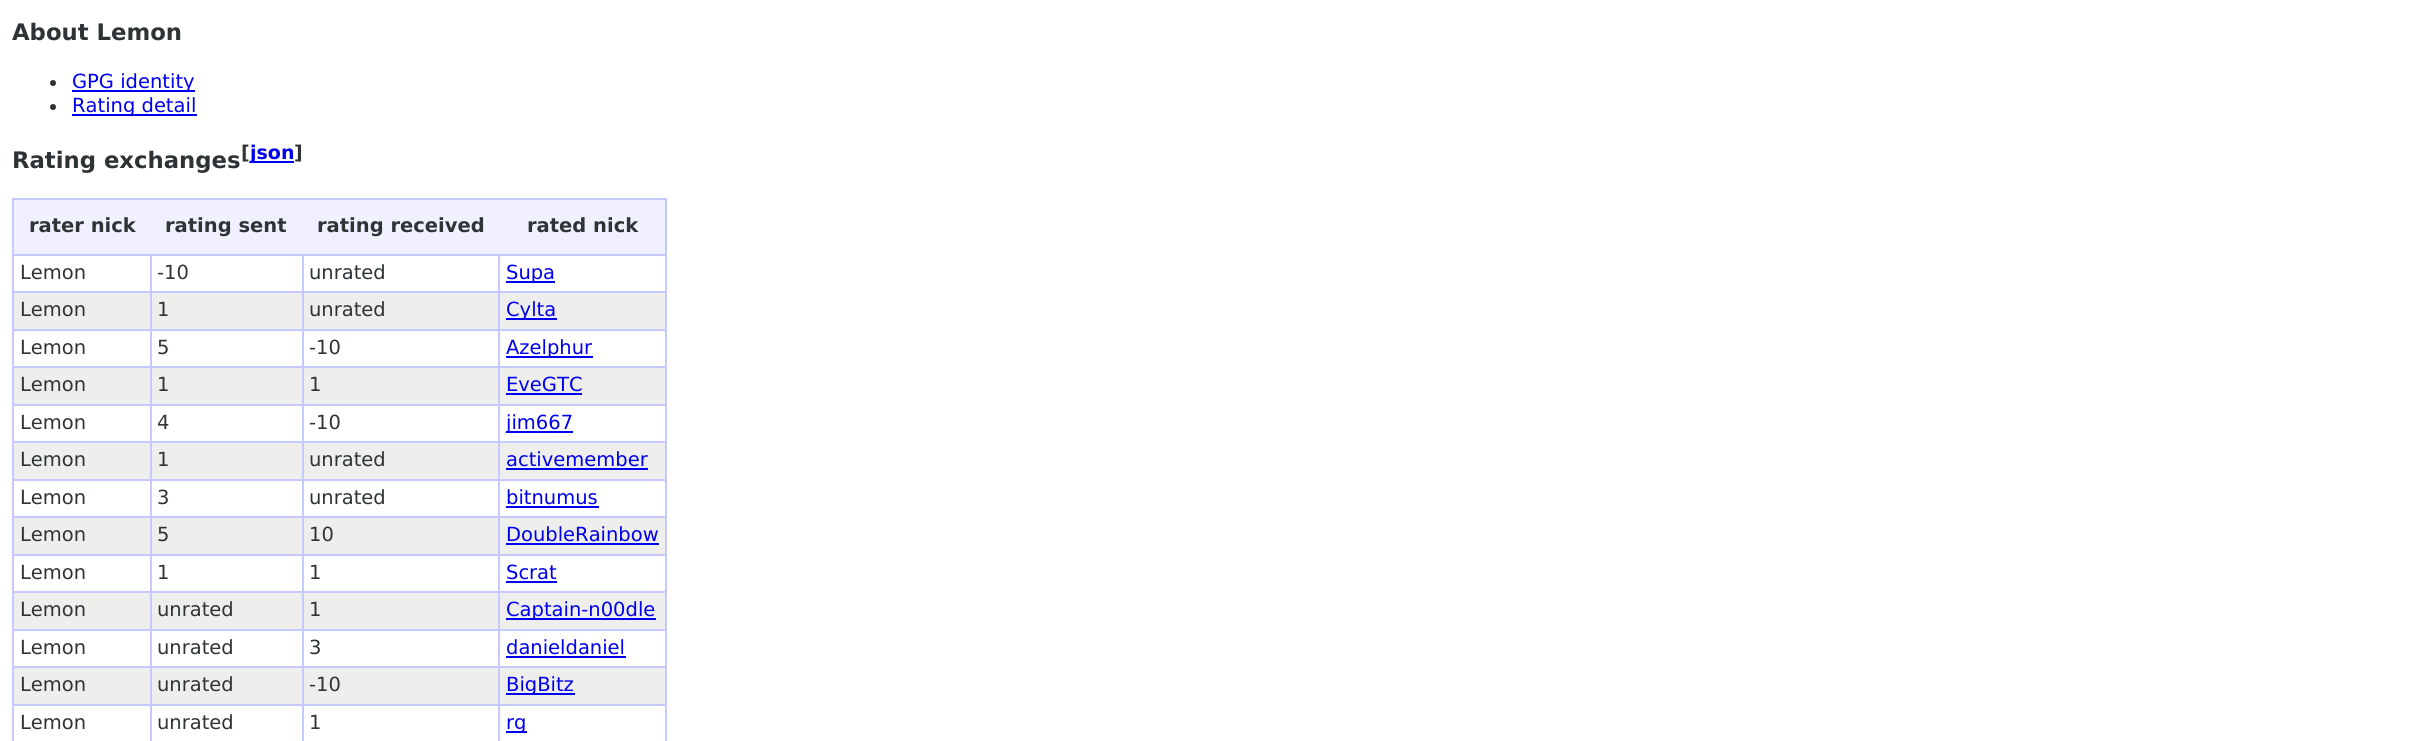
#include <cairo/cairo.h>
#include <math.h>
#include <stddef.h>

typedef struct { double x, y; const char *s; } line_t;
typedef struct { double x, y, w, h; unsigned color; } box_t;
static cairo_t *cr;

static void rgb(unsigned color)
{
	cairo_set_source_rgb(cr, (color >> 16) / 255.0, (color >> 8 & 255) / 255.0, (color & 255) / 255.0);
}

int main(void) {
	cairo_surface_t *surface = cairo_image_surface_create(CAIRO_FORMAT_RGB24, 2414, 741);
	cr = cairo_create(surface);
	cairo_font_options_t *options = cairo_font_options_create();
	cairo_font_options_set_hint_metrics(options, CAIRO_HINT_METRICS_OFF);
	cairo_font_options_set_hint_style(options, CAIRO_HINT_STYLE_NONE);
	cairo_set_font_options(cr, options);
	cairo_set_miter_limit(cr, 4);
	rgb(0xffffff);
	cairo_paint(cr);
	rgb(0x2e3436);
	cairo_arc(cr, 53, 83, 3, 0, 2 * M_PI);
	cairo_fill(cr);
	rgb(0x0000ee);
	cairo_rectangle(cr, 72, 90, 123, 2);
	cairo_fill(cr);
	rgb(0x2e3436);
	cairo_arc(cr, 53, 107, 3, 0, 2 * M_PI);
	cairo_fill(cr);
	{
		static const box_t items[] = {
			{72, 114, 125, 2, 0x0000ee},
			{251, 161, 43, 2, 0x0000ee},
			{12, 198, 654, 2, 0xc6c9ff},
			{665, 198, 2, 543, 0xc6c9ff},
			{12, 198, 2, 543, 0xc6c9ff},
			{14, 200, 651, 54, 0xf0f0ff},
			{498, 254, 168, 2, 0xc6c9ff},
			{498, 291, 168, 2, 0xc6c9ff},
			{14, 293, 651, 36, 0xeeeeec},
			{498, 329, 168, 2, 0xc6c9ff},
			{498, 366, 168, 2, 0xc6c9ff},
			{14, 368, 651, 36, 0xeeeeec},
			{498, 404, 168, 2, 0xc6c9ff},
			{498, 441, 168, 2, 0xc6c9ff},
			{14, 443, 651, 36, 0xeeeeec},
			{498, 479, 168, 2, 0xc6c9ff},
			{498, 516, 168, 2, 0xc6c9ff},
			{14, 518, 651, 36, 0xeeeeec},
			{498, 554, 168, 2, 0xc6c9ff},
			{498, 591, 168, 2, 0xc6c9ff},
			{14, 593, 651, 36, 0xeeeeec},
			{498, 629, 168, 2, 0xc6c9ff},
			{498, 666, 168, 2, 0xc6c9ff},
			{14, 668, 651, 36, 0xeeeeec},
			{498, 704, 168, 2, 0xc6c9ff},
			{498, 704, 2, 37, 0xc6c9ff},
			{302, 704, 198, 2, 0xc6c9ff},
			{498, 666, 2, 39, 0xc6c9ff},
			{302, 666, 198, 2, 0xc6c9ff},
			{498, 629, 2, 39, 0xc6c9ff},
			{302, 629, 198, 2, 0xc6c9ff},
			{498, 591, 2, 39, 0xc6c9ff},
			{302, 591, 198, 2, 0xc6c9ff},
			{498, 554, 2, 39, 0xc6c9ff},
			{302, 554, 198, 2, 0xc6c9ff},
			{498, 516, 2, 39, 0xc6c9ff},
			{302, 516, 198, 2, 0xc6c9ff},
			{498, 479, 2, 39, 0xc6c9ff},
			{302, 479, 198, 2, 0xc6c9ff},
			{498, 441, 2, 39, 0xc6c9ff},
			{302, 441, 198, 2, 0xc6c9ff},
			{498, 404, 2, 39, 0xc6c9ff},
			{302, 404, 198, 2, 0xc6c9ff},
			{498, 366, 2, 39, 0xc6c9ff},
			{302, 366, 198, 2, 0xc6c9ff},
			{498, 329, 2, 39, 0xc6c9ff},
			{302, 329, 198, 2, 0xc6c9ff},
			{498, 291, 2, 39, 0xc6c9ff},
			{302, 291, 198, 2, 0xc6c9ff},
			{498, 254, 2, 39, 0xc6c9ff},
			{302, 254, 198, 2, 0xc6c9ff},
			{302, 704, 2, 37, 0xc6c9ff},
			{150, 704, 153, 2, 0xc6c9ff},
			{302, 666, 2, 39, 0xc6c9ff},
			{150, 666, 153, 2, 0xc6c9ff},
			{302, 629, 2, 39, 0xc6c9ff},
			{150, 629, 153, 2, 0xc6c9ff},
			{302, 591, 2, 39, 0xc6c9ff},
			{150, 591, 153, 2, 0xc6c9ff},
			{302, 554, 2, 39, 0xc6c9ff},
			{150, 554, 153, 2, 0xc6c9ff},
			{302, 516, 2, 39, 0xc6c9ff},
			{150, 516, 153, 2, 0xc6c9ff},
			{302, 479, 2, 39, 0xc6c9ff},
			{150, 479, 153, 2, 0xc6c9ff},
			{302, 441, 2, 39, 0xc6c9ff},
			{150, 441, 153, 2, 0xc6c9ff},
			{302, 404, 2, 39, 0xc6c9ff},
			{150, 404, 153, 2, 0xc6c9ff},
			{302, 366, 2, 39, 0xc6c9ff},
			{150, 366, 153, 2, 0xc6c9ff},
			{302, 329, 2, 39, 0xc6c9ff},
			{150, 329, 153, 2, 0xc6c9ff},
			{302, 291, 2, 39, 0xc6c9ff},
			{150, 291, 153, 2, 0xc6c9ff},
			{302, 254, 2, 39, 0xc6c9ff},
			{150, 254, 153, 2, 0xc6c9ff},
			{150, 704, 2, 37, 0xc6c9ff},
			{12, 704, 140, 2, 0xc6c9ff},
			{150, 666, 2, 39, 0xc6c9ff},
			{12, 666, 140, 2, 0xc6c9ff},
			{150, 629, 2, 39, 0xc6c9ff},
			{12, 629, 140, 2, 0xc6c9ff},
			{150, 591, 2, 39, 0xc6c9ff},
			{12, 591, 140, 2, 0xc6c9ff},
			{150, 554, 2, 39, 0xc6c9ff},
			{12, 554, 140, 2, 0xc6c9ff},
			{150, 516, 2, 39, 0xc6c9ff},
			{12, 516, 140, 2, 0xc6c9ff},
			{150, 479, 2, 39, 0xc6c9ff},
			{12, 479, 140, 2, 0xc6c9ff},
			{150, 441, 2, 39, 0xc6c9ff},
			{12, 441, 140, 2, 0xc6c9ff},
			{150, 404, 2, 39, 0xc6c9ff},
			{12, 404, 140, 2, 0xc6c9ff},
			{150, 366, 2, 39, 0xc6c9ff},
			{12, 366, 140, 2, 0xc6c9ff},
			{150, 329, 2, 39, 0xc6c9ff},
			{12, 329, 140, 2, 0xc6c9ff},
			{150, 291, 2, 39, 0xc6c9ff},
			{12, 291, 140, 2, 0xc6c9ff},
			{150, 254, 2, 39, 0xc6c9ff},
			{12, 254, 140, 2, 0xc6c9ff},
			{506, 281, 49, 2, 0x0000ee},
			{506, 318, 51, 2, 0x0000ee},
			{506, 356, 87, 2, 0x0000ee},
			{506, 393, 76, 2, 0x0000ee},
			{506, 431, 67, 2, 0x0000ee},
			{506, 468, 142, 2, 0x0000ee},
			{506, 506, 93, 2, 0x0000ee},
			{506, 543, 153, 2, 0x0000ee},
			{506, 581, 51, 2, 0x0000ee},
			{506, 618, 150, 2, 0x0000ee},
			{506, 656, 120, 2, 0x0000ee},
			{506, 693, 69, 2, 0x0000ee},
			{506, 731, 21, 2, 0x0000ee},
		};
		for (size_t i = 0; i < sizeof items / sizeof *items; i++) {
			rgb(items[i].color);
			cairo_rectangle(cr, items[i].x, items[i].y, items[i].w, items[i].h);
			cairo_fill(cr);
		}
	}
	cairo_select_font_face(cr, "DejaVu Sans", CAIRO_FONT_SLANT_NORMAL, CAIRO_FONT_WEIGHT_BOLD);
	cairo_set_font_size(cr, 22.75);
	rgb(0x2e3436);
	cairo_move_to(cr, 12, 40);
	cairo_show_text(cr, "About Lemon");
	cairo_select_font_face(cr, "DejaVu Sans", CAIRO_FONT_SLANT_NORMAL, CAIRO_FONT_WEIGHT_NORMAL);
	cairo_set_font_size(cr, 19.5);
	rgb(0x0000ee);
	cairo_move_to(cr, 72, 88);
	cairo_show_text(cr, "GPG identity");
	cairo_move_to(cr, 72, 112);
	cairo_show_text(cr, "Rating detail");
	cairo_select_font_face(cr, "DejaVu Sans", CAIRO_FONT_SLANT_NORMAL, CAIRO_FONT_WEIGHT_BOLD);
	cairo_set_font_size(cr, 22.75);
	rgb(0x2e3436);
	cairo_move_to(cr, 12, 168);
	cairo_show_text(cr, "Rating exchanges");
	cairo_set_font_size(cr, 19);
	cairo_move_to(cr, 241, 159);
	cairo_show_text(cr, "[");
	rgb(0x0000ee);
	cairo_move_to(cr, 250, 159);
	cairo_show_text(cr, "json");
	rgb(0x2e3436);
	cairo_move_to(cr, 294, 159);
	cairo_show_text(cr, "]");
	cairo_set_font_size(cr, 19.5);
	{
		static const line_t items[] = {
			{29, 232, "rater nick"},
			{165, 232, "rating sent"},
			{317, 232, "rating received"},
			{527, 232, "rated nick"},
		};
		for (size_t i = 0; i < sizeof items / sizeof *items; i++) {
			cairo_move_to(cr, items[i].x, items[i].y);
			cairo_show_text(cr, items[i].s);
		}
	}
	cairo_select_font_face(cr, "DejaVu Sans", CAIRO_FONT_SLANT_NORMAL, CAIRO_FONT_WEIGHT_NORMAL);
	{
		static const line_t items[] = {
			{20, 279, "Lemon"},
			{157, 279, "-10"},
			{309, 279, "unrated"},
		};
		for (size_t i = 0; i < sizeof items / sizeof *items; i++) {
			cairo_move_to(cr, items[i].x, items[i].y);
			cairo_show_text(cr, items[i].s);
		}
	}
	rgb(0x0000ee);
	cairo_move_to(cr, 506, 279);
	cairo_show_text(cr, "Supa");
	rgb(0x2e3436);
	{
		static const line_t items[] = {
			{20, 316, "Lemon"},
			{157, 316, "1"},
			{309, 316, "unrated"},
		};
		for (size_t i = 0; i < sizeof items / sizeof *items; i++) {
			cairo_move_to(cr, items[i].x, items[i].y);
			cairo_show_text(cr, items[i].s);
		}
	}
	rgb(0x0000ee);
	cairo_move_to(cr, 506, 316);
	cairo_show_text(cr, "Cylta");
	rgb(0x2e3436);
	{
		static const line_t items[] = {
			{20, 354, "Lemon"},
			{157, 354, "5"},
			{309, 354, "-10"},
		};
		for (size_t i = 0; i < sizeof items / sizeof *items; i++) {
			cairo_move_to(cr, items[i].x, items[i].y);
			cairo_show_text(cr, items[i].s);
		}
	}
	rgb(0x0000ee);
	cairo_move_to(cr, 506, 354);
	cairo_show_text(cr, "Azelphur");
	rgb(0x2e3436);
	{
		static const line_t items[] = {
			{20, 391, "Lemon"},
			{157, 391, "1"},
			{309, 391, "1"},
		};
		for (size_t i = 0; i < sizeof items / sizeof *items; i++) {
			cairo_move_to(cr, items[i].x, items[i].y);
			cairo_show_text(cr, items[i].s);
		}
	}
	rgb(0x0000ee);
	cairo_move_to(cr, 506, 391);
	cairo_show_text(cr, "EveGTC");
	rgb(0x2e3436);
	{
		static const line_t items[] = {
			{20, 429, "Lemon"},
			{157, 429, "4"},
			{309, 429, "-10"},
		};
		for (size_t i = 0; i < sizeof items / sizeof *items; i++) {
			cairo_move_to(cr, items[i].x, items[i].y);
			cairo_show_text(cr, items[i].s);
		}
	}
	rgb(0x0000ee);
	cairo_move_to(cr, 506, 429);
	cairo_show_text(cr, "jim667");
	rgb(0x2e3436);
	{
		static const line_t items[] = {
			{20, 466, "Lemon"},
			{157, 466, "1"},
			{309, 466, "unrated"},
		};
		for (size_t i = 0; i < sizeof items / sizeof *items; i++) {
			cairo_move_to(cr, items[i].x, items[i].y);
			cairo_show_text(cr, items[i].s);
		}
	}
	rgb(0x0000ee);
	cairo_move_to(cr, 506, 466);
	cairo_show_text(cr, "activemember");
	rgb(0x2e3436);
	{
		static const line_t items[] = {
			{20, 504, "Lemon"},
			{157, 504, "3"},
			{309, 504, "unrated"},
		};
		for (size_t i = 0; i < sizeof items / sizeof *items; i++) {
			cairo_move_to(cr, items[i].x, items[i].y);
			cairo_show_text(cr, items[i].s);
		}
	}
	rgb(0x0000ee);
	cairo_move_to(cr, 506, 504);
	cairo_show_text(cr, "bitnumus");
	rgb(0x2e3436);
	{
		static const line_t items[] = {
			{20, 541, "Lemon"},
			{157, 541, "5"},
			{309, 541, "10"},
		};
		for (size_t i = 0; i < sizeof items / sizeof *items; i++) {
			cairo_move_to(cr, items[i].x, items[i].y);
			cairo_show_text(cr, items[i].s);
		}
	}
	rgb(0x0000ee);
	cairo_move_to(cr, 506, 541);
	cairo_show_text(cr, "DoubleRainbow");
	rgb(0x2e3436);
	{
		static const line_t items[] = {
			{20, 579, "Lemon"},
			{157, 579, "1"},
			{309, 579, "1"},
		};
		for (size_t i = 0; i < sizeof items / sizeof *items; i++) {
			cairo_move_to(cr, items[i].x, items[i].y);
			cairo_show_text(cr, items[i].s);
		}
	}
	rgb(0x0000ee);
	cairo_move_to(cr, 506, 579);
	cairo_show_text(cr, "Scrat");
	rgb(0x2e3436);
	{
		static const line_t items[] = {
			{20, 616, "Lemon"},
			{157, 616, "unrated"},
			{309, 616, "1"},
		};
		for (size_t i = 0; i < sizeof items / sizeof *items; i++) {
			cairo_move_to(cr, items[i].x, items[i].y);
			cairo_show_text(cr, items[i].s);
		}
	}
	rgb(0x0000ee);
	cairo_move_to(cr, 506, 616);
	cairo_show_text(cr, "Captain-n00dle");
	rgb(0x2e3436);
	{
		static const line_t items[] = {
			{20, 654, "Lemon"},
			{157, 654, "unrated"},
			{309, 654, "3"},
		};
		for (size_t i = 0; i < sizeof items / sizeof *items; i++) {
			cairo_move_to(cr, items[i].x, items[i].y);
			cairo_show_text(cr, items[i].s);
		}
	}
	rgb(0x0000ee);
	cairo_move_to(cr, 506, 654);
	cairo_show_text(cr, "danieldaniel");
	rgb(0x2e3436);
	{
		static const line_t items[] = {
			{20, 691, "Lemon"},
			{157, 691, "unrated"},
			{309, 691, "-10"},
		};
		for (size_t i = 0; i < sizeof items / sizeof *items; i++) {
			cairo_move_to(cr, items[i].x, items[i].y);
			cairo_show_text(cr, items[i].s);
		}
	}
	rgb(0x0000ee);
	cairo_move_to(cr, 506, 691);
	cairo_show_text(cr, "BigBitz");
	rgb(0x2e3436);
	{
		static const line_t items[] = {
			{20, 729, "Lemon"},
			{157, 729, "unrated"},
			{309, 729, "1"},
		};
		for (size_t i = 0; i < sizeof items / sizeof *items; i++) {
			cairo_move_to(cr, items[i].x, items[i].y);
			cairo_show_text(cr, items[i].s);
		}
	}
	rgb(0x0000ee);
	cairo_move_to(cr, 506, 729);
	cairo_show_text(cr, "rg");
	cairo_surface_write_to_png(surface, "page.png");
	cairo_font_options_destroy(options);
	cairo_destroy(cr);
	cairo_surface_destroy(surface);
	return 0;
}
